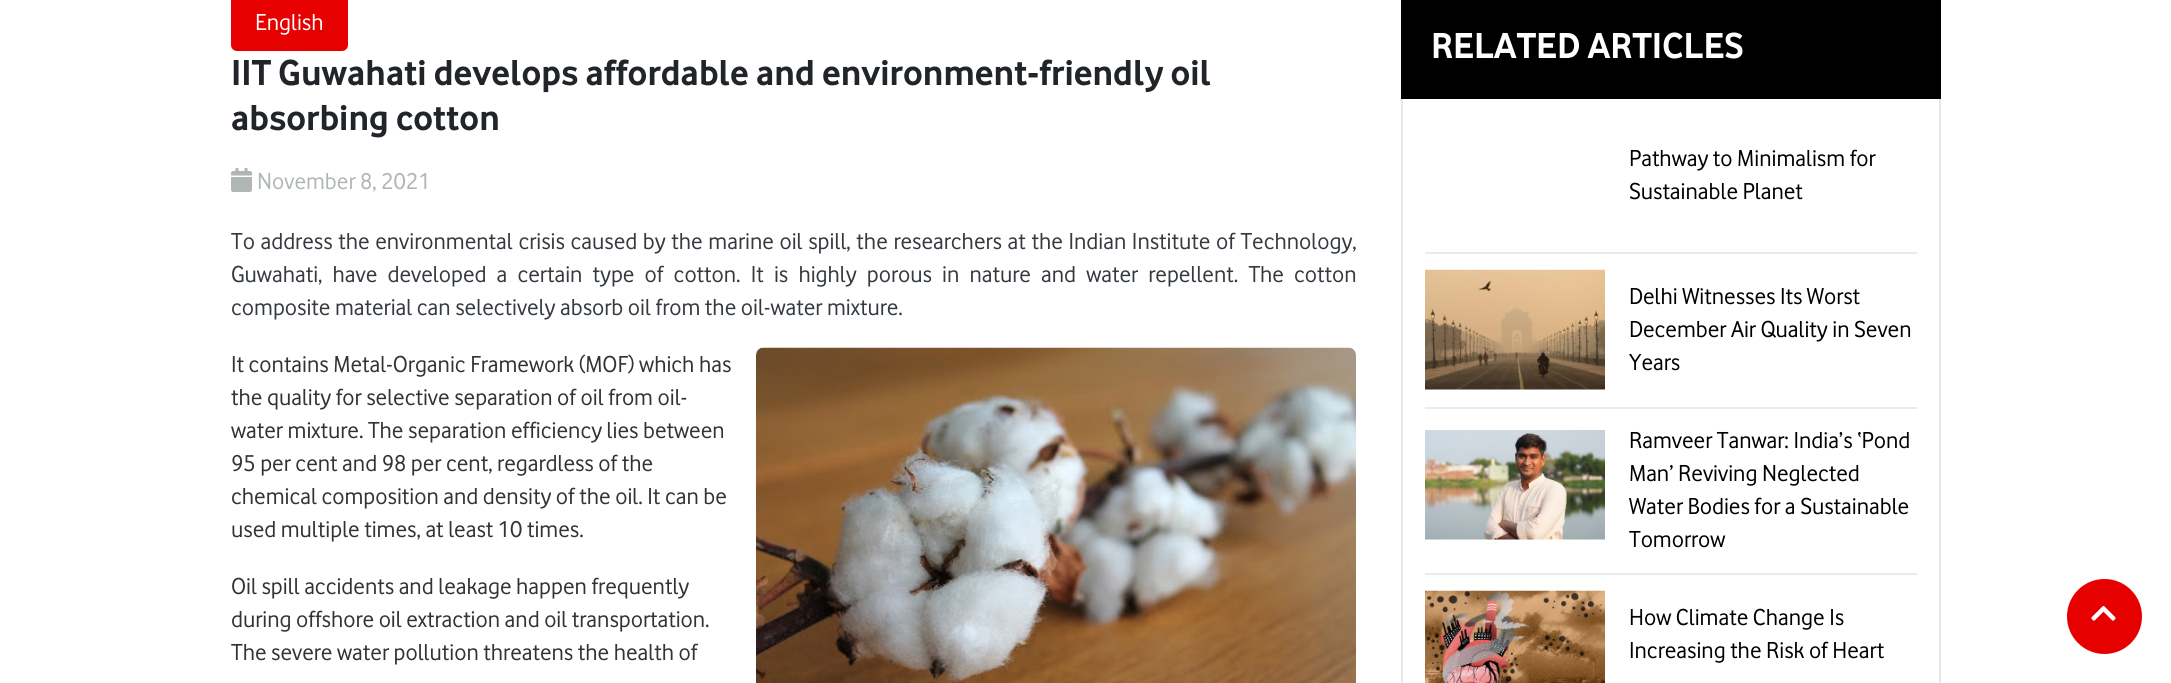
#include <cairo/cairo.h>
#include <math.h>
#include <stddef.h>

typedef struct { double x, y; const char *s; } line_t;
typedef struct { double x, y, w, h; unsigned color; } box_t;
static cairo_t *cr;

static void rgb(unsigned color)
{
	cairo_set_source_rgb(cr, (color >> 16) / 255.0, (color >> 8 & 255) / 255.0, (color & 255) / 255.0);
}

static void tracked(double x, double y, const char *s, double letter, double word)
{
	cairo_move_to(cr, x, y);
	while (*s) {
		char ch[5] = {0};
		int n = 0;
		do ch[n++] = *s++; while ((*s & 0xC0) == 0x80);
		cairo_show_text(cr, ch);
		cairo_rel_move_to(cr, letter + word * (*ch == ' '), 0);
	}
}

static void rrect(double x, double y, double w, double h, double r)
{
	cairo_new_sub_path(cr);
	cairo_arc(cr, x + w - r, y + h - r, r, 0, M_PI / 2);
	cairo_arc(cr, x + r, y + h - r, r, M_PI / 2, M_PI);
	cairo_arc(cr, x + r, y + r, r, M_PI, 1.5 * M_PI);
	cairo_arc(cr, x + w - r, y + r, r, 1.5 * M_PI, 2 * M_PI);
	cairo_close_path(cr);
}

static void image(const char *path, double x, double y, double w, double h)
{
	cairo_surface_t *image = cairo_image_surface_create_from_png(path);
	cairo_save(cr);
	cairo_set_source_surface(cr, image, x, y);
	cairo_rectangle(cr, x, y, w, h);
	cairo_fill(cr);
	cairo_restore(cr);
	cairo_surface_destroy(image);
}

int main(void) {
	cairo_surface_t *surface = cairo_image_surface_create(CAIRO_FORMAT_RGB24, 2171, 683);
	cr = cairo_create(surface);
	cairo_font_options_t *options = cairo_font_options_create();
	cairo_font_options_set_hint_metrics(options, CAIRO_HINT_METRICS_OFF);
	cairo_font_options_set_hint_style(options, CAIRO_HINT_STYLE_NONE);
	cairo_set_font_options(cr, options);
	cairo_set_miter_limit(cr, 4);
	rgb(0xffffff);
	cairo_paint(cr);
	rgb(0xe60000);
	rrect(231, -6, 117, 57, 6);
	cairo_fill(cr);
	image("img/1.png", 231, 168, 21, 24);
	image("img/2.png", 756, 347, 600, 336);
	cairo_rectangle(cr, 1402, -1, 538, 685);
	rgb(0xe5e8f3);
	cairo_stroke(cr);
	{
		static const box_t items[] = {
			{1401, 0, 540, 99, 0x000000},
			{1425, 252, 492, 2, 0xeaeaea},
			{1425, 407, 492, 2, 0xeaeaea},
		};
		for (size_t i = 0; i < sizeof items / sizeof *items; i++) {
			rgb(items[i].color);
			cairo_rectangle(cr, items[i].x, items[i].y, items[i].w, items[i].h);
			cairo_fill(cr);
		}
	}
	image("img/3.png", 1425, 269, 180, 121);
	cairo_rectangle(cr, 1425, 573, 492, 2);
	cairo_fill(cr);
	image("img/4.png", 1425, 430, 180, 110);
	image("img/5.png", 1425, 590, 180, 93);
	rgb(0xe60000);
	cairo_arc(cr, 2104.5, 616.5, 37.5, 0, 2 * M_PI);
	cairo_fill(cr);
	image("img/6.png", 2091, 605, 25, 16);
	cairo_select_font_face(cr, "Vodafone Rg", CAIRO_FONT_SLANT_NORMAL, CAIRO_FONT_WEIGHT_NORMAL);
	cairo_set_font_size(cr, 24);
	rgb(0xffffff);
	cairo_move_to(cr, 255, 30);
	cairo_show_text(cr, "English");
	cairo_select_font_face(cr, "Vodafone Rg", CAIRO_FONT_SLANT_NORMAL, CAIRO_FONT_WEIGHT_BOLD);
	cairo_set_font_size(cr, 37.5);
	rgb(0x212529);
	cairo_move_to(cr, 231, 85);
	cairo_show_text(cr, "IIT Guwahati develops affordable and environment-friendly oil");
	cairo_move_to(cr, 231, 130);
	cairo_show_text(cr, "absorbing cotton");
	cairo_select_font_face(cr, "Vodafone Rg", CAIRO_FONT_SLANT_NORMAL, CAIRO_FONT_WEIGHT_NORMAL);
	cairo_set_font_size(cr, 24);
	rgb(0xb0b5b5);
	cairo_move_to(cr, 257, 189);
	cairo_show_text(cr, "November 8, 2021");
	rgb(0x343a40);
	tracked(231, 249, "To address the environmental crisis caused by the marine oil spill, the researchers at the Indian Institute of Technology,", 0, 1.1);
	tracked(231, 282, "Guwahati, have developed a certain type of cotton. It is highly porous in nature and water repellent. The cotton", 0, 5.6);
	cairo_move_to(cr, 231, 315);
	cairo_show_text(cr, "composite material can selectively absorb oil from the oil-water mixture.");
	rgb(0x333333);
	{
		static const line_t items[] = {
			{231, 372, "It contains Metal-Organic Framework (MOF) which has"},
			{231, 405, "the quality for selective separation of oil from oil-"},
			{231, 438, "water mixture. The separation efficiency lies between"},
			{231, 471, "95 per cent and 98 per cent, regardless of the"},
			{231, 504, "chemical composition and density of the oil. It can be"},
			{231, 537, "used multiple times, at least 10 times."},
			{231, 594, "Oil spill accidents and leakage happen frequently"},
			{231, 627, "during offshore oil extraction and oil transportation."},
			{231, 660, "The severe water pollution threatens the health of"},
		};
		for (size_t i = 0; i < sizeof items / sizeof *items; i++) {
			cairo_move_to(cr, items[i].x, items[i].y);
			cairo_show_text(cr, items[i].s);
		}
	}
	cairo_select_font_face(cr, "Vodafone Rg", CAIRO_FONT_SLANT_NORMAL, CAIRO_FONT_WEIGHT_BOLD);
	cairo_set_font_size(cr, 37.5);
	rgb(0xffffff);
	cairo_move_to(cr, 1431, 58);
	cairo_show_text(cr, "RELATED ARTICLES");
	cairo_select_font_face(cr, "Vodafone Rg", CAIRO_FONT_SLANT_NORMAL, CAIRO_FONT_WEIGHT_NORMAL);
	cairo_set_font_size(cr, 24);
	rgb(0x000000);
	{
		static const line_t items[] = {
			{1629, 166, "Pathway to Minimalism for"},
			{1629, 199, "Sustainable Planet"},
			{1629, 304, "Delhi Witnesses Its Worst"},
			{1629, 337, "December Air Quality in Seven"},
			{1629, 370, "Years"},
			{1629, 448, "Ramveer Tanwar: India’s ‘Pond"},
			{1629, 481, "Man’ Reviving Neglected"},
			{1629, 514, "Water Bodies for a Sustainable"},
			{1629, 547, "Tomorrow"},
			{1629, 625, "How Climate Change Is"},
			{1629, 658, "Increasing the Risk of Heart"},
		};
		for (size_t i = 0; i < sizeof items / sizeof *items; i++) {
			cairo_move_to(cr, items[i].x, items[i].y);
			cairo_show_text(cr, items[i].s);
		}
	}
	cairo_surface_write_to_png(surface, "page.png");
	cairo_font_options_destroy(options);
	cairo_destroy(cr);
	cairo_surface_destroy(surface);
	return 0;
}
